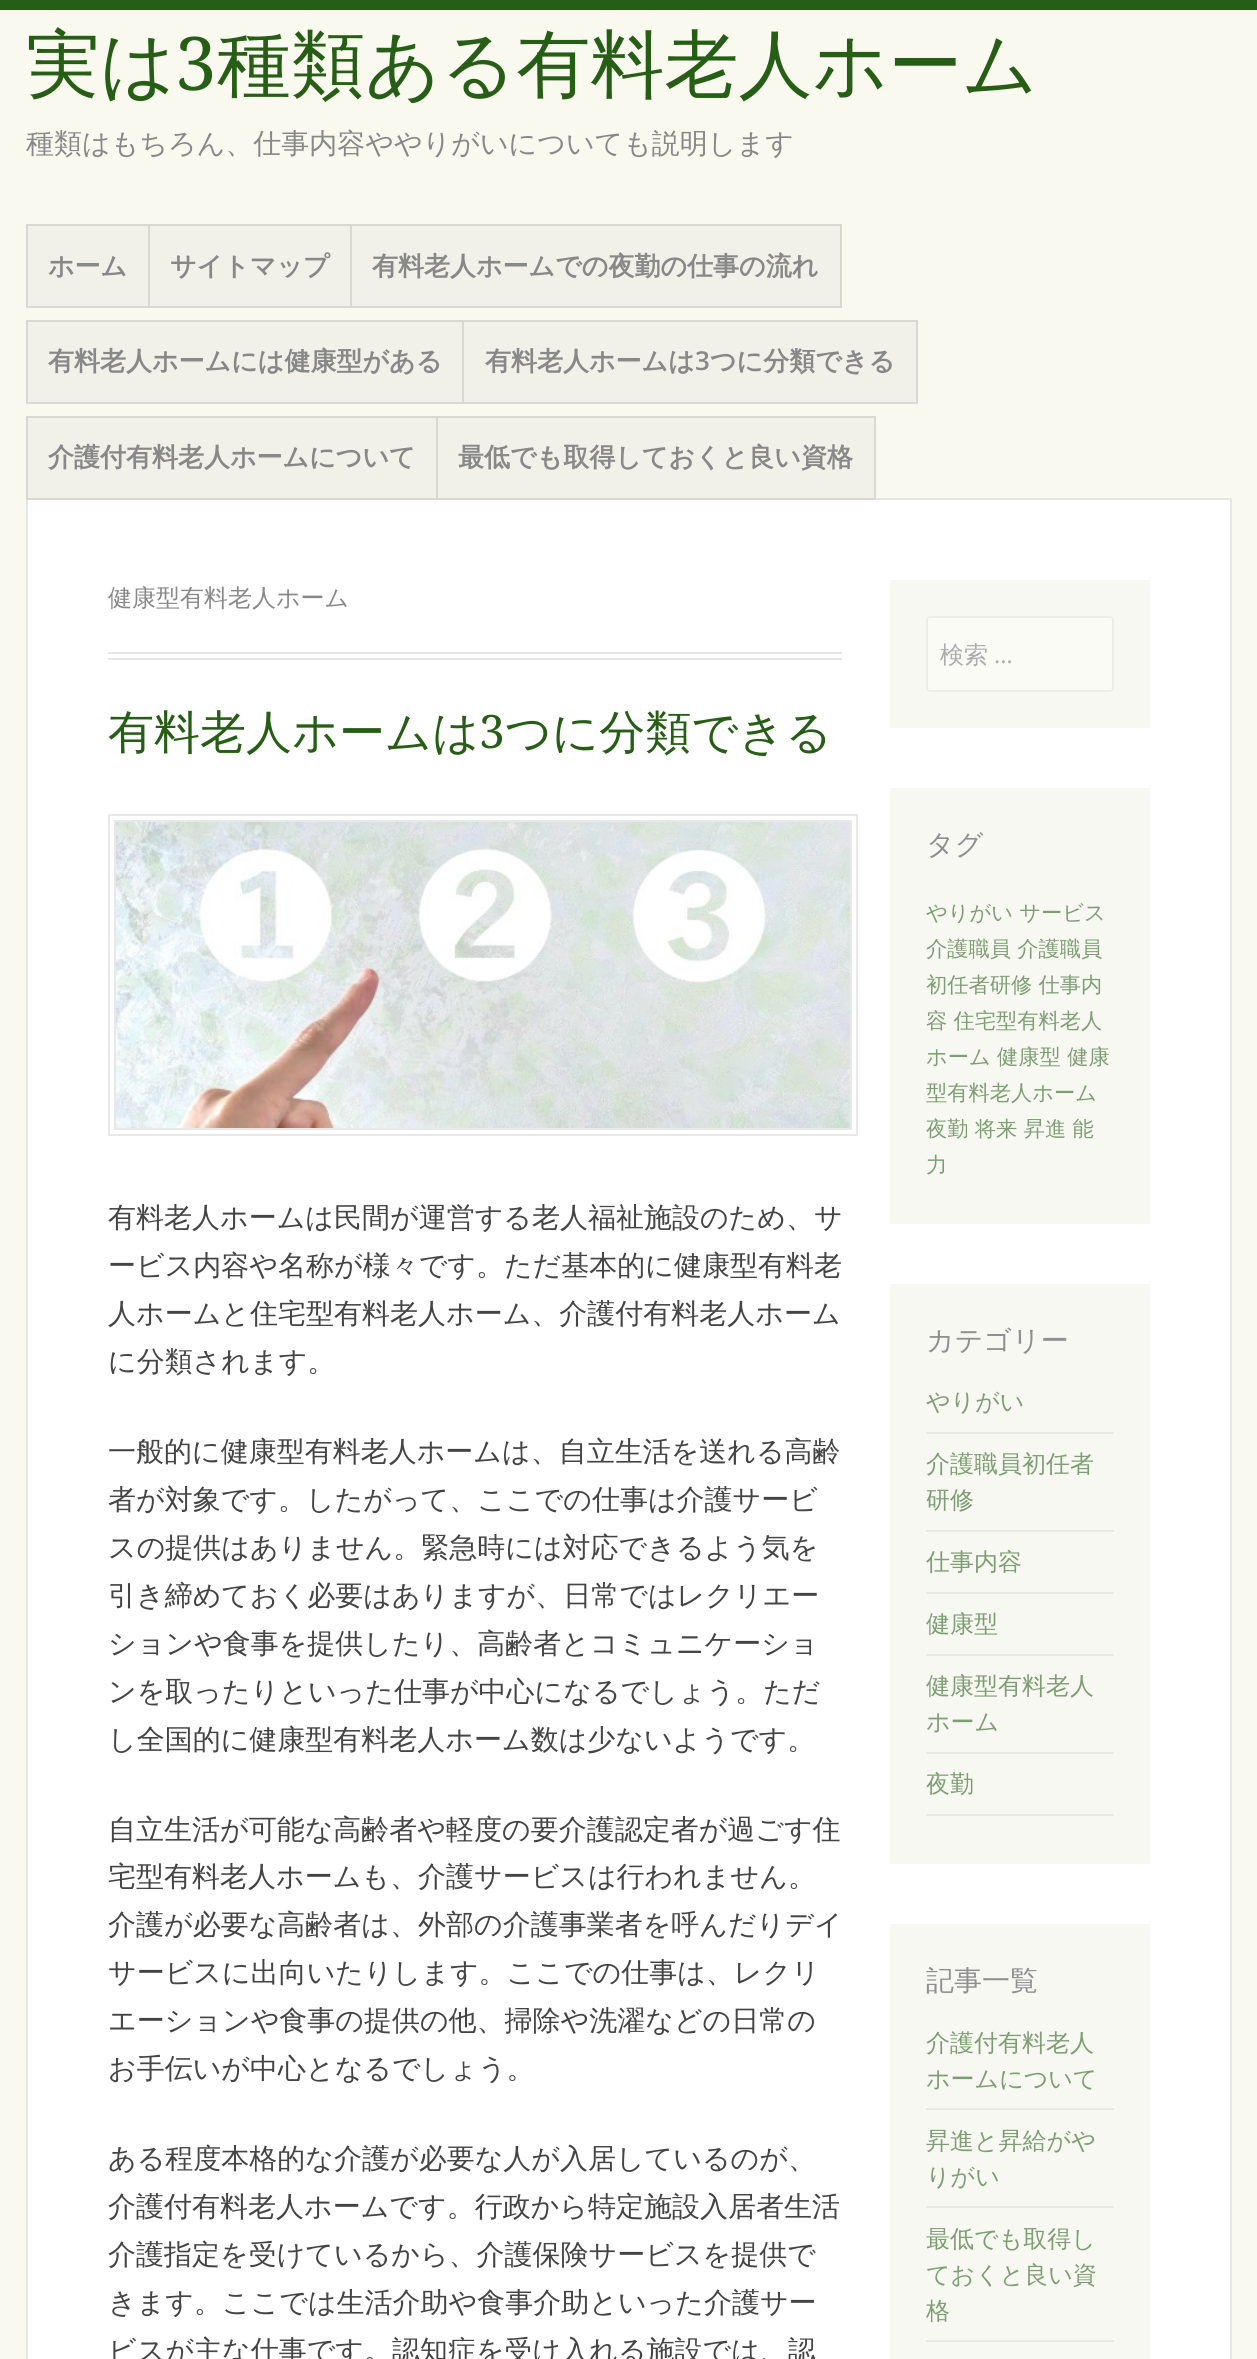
#include <cairo/cairo.h>
#include <math.h>
#include <stddef.h>

typedef struct { double x, y; const char *s; } line_t;
typedef struct { double x, y, w, h; unsigned color; } box_t;
static cairo_t *cr;

static void rgb(unsigned color)
{
	cairo_set_source_rgb(cr, (color >> 16) / 255.0, (color >> 8 & 255) / 255.0, (color & 255) / 255.0);
}

static void rrect(double x, double y, double w, double h, double r)
{
	cairo_new_sub_path(cr);
	cairo_arc(cr, x + w - r, y + h - r, r, 0, M_PI / 2);
	cairo_arc(cr, x + r, y + h - r, r, M_PI / 2, M_PI);
	cairo_arc(cr, x + r, y + r, r, M_PI, 1.5 * M_PI);
	cairo_arc(cr, x + w - r, y + r, r, 1.5 * M_PI, 2 * M_PI);
	cairo_close_path(cr);
}

static void image(const char *path, double x, double y, double w, double h)
{
	cairo_surface_t *image = cairo_image_surface_create_from_png(path);
	cairo_save(cr);
	cairo_set_source_surface(cr, image, x, y);
	cairo_rectangle(cr, x, y, w, h);
	cairo_fill(cr);
	cairo_restore(cr);
	cairo_surface_destroy(image);
}

int main(void) {
	cairo_surface_t *surface = cairo_image_surface_create(CAIRO_FORMAT_RGB24, 1257, 2359);
	cr = cairo_create(surface);
	cairo_font_options_t *options = cairo_font_options_create();
	cairo_font_options_set_hint_metrics(options, CAIRO_HINT_METRICS_OFF);
	cairo_font_options_set_hint_style(options, CAIRO_HINT_STYLE_NONE);
	cairo_set_font_options(cr, options);
	cairo_set_miter_limit(cr, 4);
	rgb(0xf9f9f0);
	cairo_paint(cr);
	rgb(0x265e15);
	cairo_rectangle(cr, 0, 0, 1257, 10);
	cairo_fill(cr);
	rgb(0xf1f1e9);
	cairo_rectangle(cr, 27, 225, 122, 82);
	cairo_fill_preserve(cr);
	rgb(0xd9d9d2);
	cairo_stroke(cr);
	rgb(0xf1f1e9);
	cairo_rectangle(cr, 149, 225, 202, 82);
	cairo_fill_preserve(cr);
	rgb(0xd9d9d2);
	cairo_stroke(cr);
	rgb(0xf1f1e9);
	cairo_rectangle(cr, 351, 225, 490, 82);
	cairo_fill_preserve(cr);
	rgb(0xd9d9d2);
	cairo_stroke(cr);
	rgb(0xf1f1e9);
	cairo_rectangle(cr, 28, 322, 434, 80);
	cairo_fill(cr);
	cairo_rectangle(cr, 27, 321, 438, 82);
	rgb(0xd9d9d2);
	cairo_stroke(cr);
	rgb(0xf1f1e9);
	cairo_rectangle(cr, 463, 321, 454, 82);
	cairo_fill_preserve(cr);
	rgb(0xd9d9d2);
	cairo_stroke(cr);
	rgb(0xffffff);
	cairo_rectangle(cr, 27, 499, 1204, 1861);
	cairo_fill_preserve(cr);
	rgb(0xe6e6e6);
	cairo_stroke(cr);
	rgb(0xf1f1e9);
	cairo_rectangle(cr, 27, 417, 410, 82);
	cairo_fill_preserve(cr);
	rgb(0xd9d9d2);
	cairo_stroke(cr);
	rgb(0xf1f1e9);
	cairo_rectangle(cr, 437, 417, 438, 82);
	cairo_fill_preserve(cr);
	rgb(0xd9d9d2);
	cairo_stroke(cr);
	rgb(0xe6e6e6);
	cairo_rectangle(cr, 108, 652, 734, 2);
	cairo_fill(cr);
	cairo_rectangle(cr, 108, 658, 734, 2);
	cairo_fill(cr);
	cairo_rectangle(cr, 109, 815, 748, 320);
	rgb(0xe8e8e8);
	cairo_stroke(cr);
	cairo_rectangle(cr, 115, 821, 736, 308);
	cairo_stroke(cr);
	image("img/1.png", 116, 822, 734, 306);
	rgb(0xf8f8f3);
	cairo_rectangle(cr, 890, 580, 260, 148);
	cairo_fill(cr);
	rgb(0xfbfbf6);
	rrect(927, 617, 186, 74, 3);
	cairo_fill_preserve(cr);
	rgb(0xecece8);
	cairo_stroke(cr);
	{
		static const box_t items[] = {
			{890, 788, 260, 436, 0xf8f8f3},
			{890, 1284, 260, 580, 0xf8f8f3},
			{926, 1432, 188, 2, 0xe9e9e5},
			{926, 1530, 188, 2, 0xe9e9e5},
			{926, 1592, 188, 2, 0xe9e9e5},
			{926, 1654, 188, 2, 0xe9e9e5},
			{926, 1752, 188, 2, 0xe9e9e5},
			{926, 1814, 188, 2, 0xe9e9e5},
			{890, 1924, 260, 435, 0xf8f8f3},
			{926, 2108, 188, 2, 0xe9e9e5},
			{926, 2206, 188, 2, 0xe9e9e5},
			{926, 2340, 188, 2, 0xe9e9e5},
		};
		for (size_t i = 0; i < sizeof items / sizeof *items; i++) {
			rgb(items[i].color);
			cairo_rectangle(cr, items[i].x, items[i].y, items[i].w, items[i].h);
			cairo_fill(cr);
		}
	}
	cairo_select_font_face(cr, "WenQuanYi Zen Hei Medium", CAIRO_FONT_SLANT_NORMAL, CAIRO_FONT_WEIGHT_NORMAL);
	cairo_set_font_size(cr, 74);
	rgb(0x265e15);
	cairo_move_to(cr, 26, 90);
	cairo_show_text(cr, "実は");
	cairo_select_font_face(cr, "Droid Serif", CAIRO_FONT_SLANT_NORMAL, CAIRO_FONT_WEIGHT_NORMAL);
	cairo_move_to(cr, 175, 90);
	cairo_show_text(cr, "3");
	cairo_select_font_face(cr, "WenQuanYi Zen Hei Medium", CAIRO_FONT_SLANT_NORMAL, CAIRO_FONT_WEIGHT_NORMAL);
	cairo_move_to(cr, 217, 90);
	cairo_show_text(cr, "種類ある有料老人ホーム");
	cairo_set_font_size(cr, 28);
	rgb(0x888888);
	cairo_move_to(cr, 26, 153);
	cairo_show_text(cr, "種類はもちろん、仕事内容ややりがいについても説明します");
	cairo_select_font_face(cr, "WenQuanYi Zen Hei", CAIRO_FONT_SLANT_NORMAL, CAIRO_FONT_WEIGHT_BOLD);
	cairo_set_font_size(cr, 26);
	{
		static const line_t items[] = {
			{48, 275, "ホーム"},
			{170, 275, "サイトマップ"},
			{372, 275, "有料老人ホームでの夜勤の仕事の流れ"},
			{48, 370, "有料老人ホームには健康型がある"},
			{485, 370, "有料老人ホームは"},
		};
		for (size_t i = 0; i < sizeof items / sizeof *items; i++) {
			cairo_move_to(cr, items[i].x, items[i].y);
			cairo_show_text(cr, items[i].s);
		}
	}
	cairo_select_font_face(cr, "Open Sans SemiBold", CAIRO_FONT_SLANT_NORMAL, CAIRO_FONT_WEIGHT_NORMAL);
	cairo_move_to(cr, 695, 370);
	cairo_show_text(cr, "3");
	cairo_select_font_face(cr, "WenQuanYi Zen Hei", CAIRO_FONT_SLANT_NORMAL, CAIRO_FONT_WEIGHT_BOLD);
	{
		static const line_t items[] = {
			{710, 370, "つに分類できる"},
			{48, 466, "介護付有料老人ホームについて"},
			{458, 466, "最低でも取得しておくと良い資格"},
		};
		for (size_t i = 0; i < sizeof items / sizeof *items; i++) {
			cairo_move_to(cr, items[i].x, items[i].y);
			cairo_show_text(cr, items[i].s);
		}
	}
	cairo_select_font_face(cr, "WenQuanYi Zen Hei Medium", CAIRO_FONT_SLANT_NORMAL, CAIRO_FONT_WEIGHT_NORMAL);
	cairo_set_font_size(cr, 24);
	cairo_move_to(cr, 108, 606);
	cairo_show_text(cr, "健康型有料老人ホーム");
	cairo_set_font_size(cr, 46);
	rgb(0x265e15);
	cairo_move_to(cr, 108, 748);
	cairo_show_text(cr, "有料老人ホームは");
	cairo_select_font_face(cr, "Droid Serif", CAIRO_FONT_SLANT_NORMAL, CAIRO_FONT_WEIGHT_NORMAL);
	cairo_move_to(cr, 479, 748);
	cairo_show_text(cr, "3");
	cairo_select_font_face(cr, "WenQuanYi Zen Hei Medium", CAIRO_FONT_SLANT_NORMAL, CAIRO_FONT_WEIGHT_NORMAL);
	cairo_move_to(cr, 505, 748);
	cairo_show_text(cr, "つに分類できる");
	cairo_set_font_size(cr, 28);
	rgb(0x444444);
	{
		static const line_t items[] = {
			{108, 1227, "有料老人ホームは民間が運営する老人福祉施設のため、サ"},
			{108, 1275, "ービス内容や名称が様々です。ただ基本的に健康型有料老"},
			{108, 1323, "人ホームと住宅型有料老人ホーム、介護付有料老人ホーム"},
			{108, 1371, "に分類されます。"},
			{108, 1461, "一般的に健康型有料老人ホームは、自立生活を送れる高齢"},
			{108, 1509, "者が対象です。したがって、ここでの仕事は介護サービ"},
			{108, 1557, "スの提供はありません。緊急時には対応できるよう気を"},
			{108, 1605, "引き締めておく必要はありますが、日常ではレクリエー"},
			{108, 1653, "ションや食事を提供したり、高齢者とコミュニケーショ"},
			{108, 1701, "ンを取ったりといった仕事が中心になるでしょう。ただ"},
			{108, 1749, "し全国的に健康型有料老人ホーム数は少ないようです。"},
			{108, 1839, "自立生活が可能な高齢者や軽度の要介護認定者が過ごす住"},
			{108, 1886, "宅型有料老人ホームも、介護サービスは行われません。"},
			{108, 1934, "介護が必要な高齢者は、外部の介護事業者を呼んだりデイ"},
			{108, 1982, "サービスに出向いたりします。ここでの仕事は、レクリ"},
			{108, 2030, "エーションや食事の提供の他、掃除や洗濯などの日常の"},
			{108, 2078, "お手伝いが中心となるでしょう。"},
			{108, 2168, "ある程度本格的な介護が必要な人が入居しているのが、"},
			{108, 2216, "介護付有料老人ホームです。行政から特定施設入居者生活"},
			{108, 2264, "介護指定を受けているから、介護保険サービスを提供で"},
			{108, 2312, "きます。ここでは生活介助や食事介助といった介護サー"},
			{108, 2360, "ビスが主な仕事です。認知症を受け入れる施設では、認"},
		};
		for (size_t i = 0; i < sizeof items / sizeof *items; i++) {
			cairo_move_to(cr, items[i].x, items[i].y);
			cairo_show_text(cr, items[i].s);
		}
	}
	cairo_set_font_size(cr, 24);
	rgb(0xacacac);
	cairo_move_to(cr, 940, 663);
	cairo_show_text(cr, "検索");
	cairo_select_font_face(cr, "Open Sans", CAIRO_FONT_SLANT_NORMAL, CAIRO_FONT_WEIGHT_NORMAL);
	cairo_move_to(cr, 994, 663);
	cairo_show_text(cr, "…");
	cairo_select_font_face(cr, "WenQuanYi Zen Hei Medium", CAIRO_FONT_SLANT_NORMAL, CAIRO_FONT_WEIGHT_NORMAL);
	cairo_set_font_size(cr, 28);
	rgb(0x8f8f8f);
	cairo_move_to(cr, 926, 854);
	cairo_show_text(cr, "タグ");
	cairo_set_font_size(cr, 21.25);
	rgb(0x7d9e73);
	{
		static const line_t items[] = {
			{926, 920, "やりがい サービス"},
			{926, 956, "介護職員 介護職員"},
			{926, 992, "初任者研修 仕事内"},
			{926, 1028, "容 住宅型有料老人"},
			{926, 1064, "ホーム 健康型 健康"},
			{926, 1100, "型有料老人ホーム"},
			{926, 1136, "夜勤 将来 昇進 能"},
			{926, 1172, "力"},
		};
		for (size_t i = 0; i < sizeof items / sizeof *items; i++) {
			cairo_move_to(cr, items[i].x, items[i].y);
			cairo_show_text(cr, items[i].s);
		}
	}
	cairo_set_font_size(cr, 28);
	rgb(0x8f8f8f);
	cairo_move_to(cr, 926, 1350);
	cairo_show_text(cr, "カテゴリー");
	cairo_set_font_size(cr, 24);
	rgb(0x7d9e73);
	{
		static const line_t items[] = {
			{926, 1410, "やりがい"},
			{926, 1472, "介護職員初任者"},
			{926, 1508, "研修"},
			{926, 1570, "仕事内容"},
			{926, 1632, "健康型"},
			{926, 1694, "健康型有料老人"},
			{926, 1730, "ホーム"},
			{926, 1792, "夜勤"},
		};
		for (size_t i = 0; i < sizeof items / sizeof *items; i++) {
			cairo_move_to(cr, items[i].x, items[i].y);
			cairo_show_text(cr, items[i].s);
		}
	}
	cairo_set_font_size(cr, 28);
	rgb(0x8f8f8f);
	cairo_move_to(cr, 926, 1990);
	cairo_show_text(cr, "記事一覧");
	cairo_set_font_size(cr, 24);
	rgb(0x7d9e73);
	{
		static const line_t items[] = {
			{926, 2051, "介護付有料老人"},
			{926, 2087, "ホームについて"},
			{926, 2149, "昇進と昇給がや"},
			{926, 2185, "りがい"},
			{926, 2247, "最低でも取得し"},
			{926, 2283, "ておくと良い資"},
			{926, 2319, "格"},
		};
		for (size_t i = 0; i < sizeof items / sizeof *items; i++) {
			cairo_move_to(cr, items[i].x, items[i].y);
			cairo_show_text(cr, items[i].s);
		}
	}
	cairo_surface_write_to_png(surface, "page.png");
	cairo_font_options_destroy(options);
	cairo_destroy(cr);
	cairo_surface_destroy(surface);
	return 0;
}
